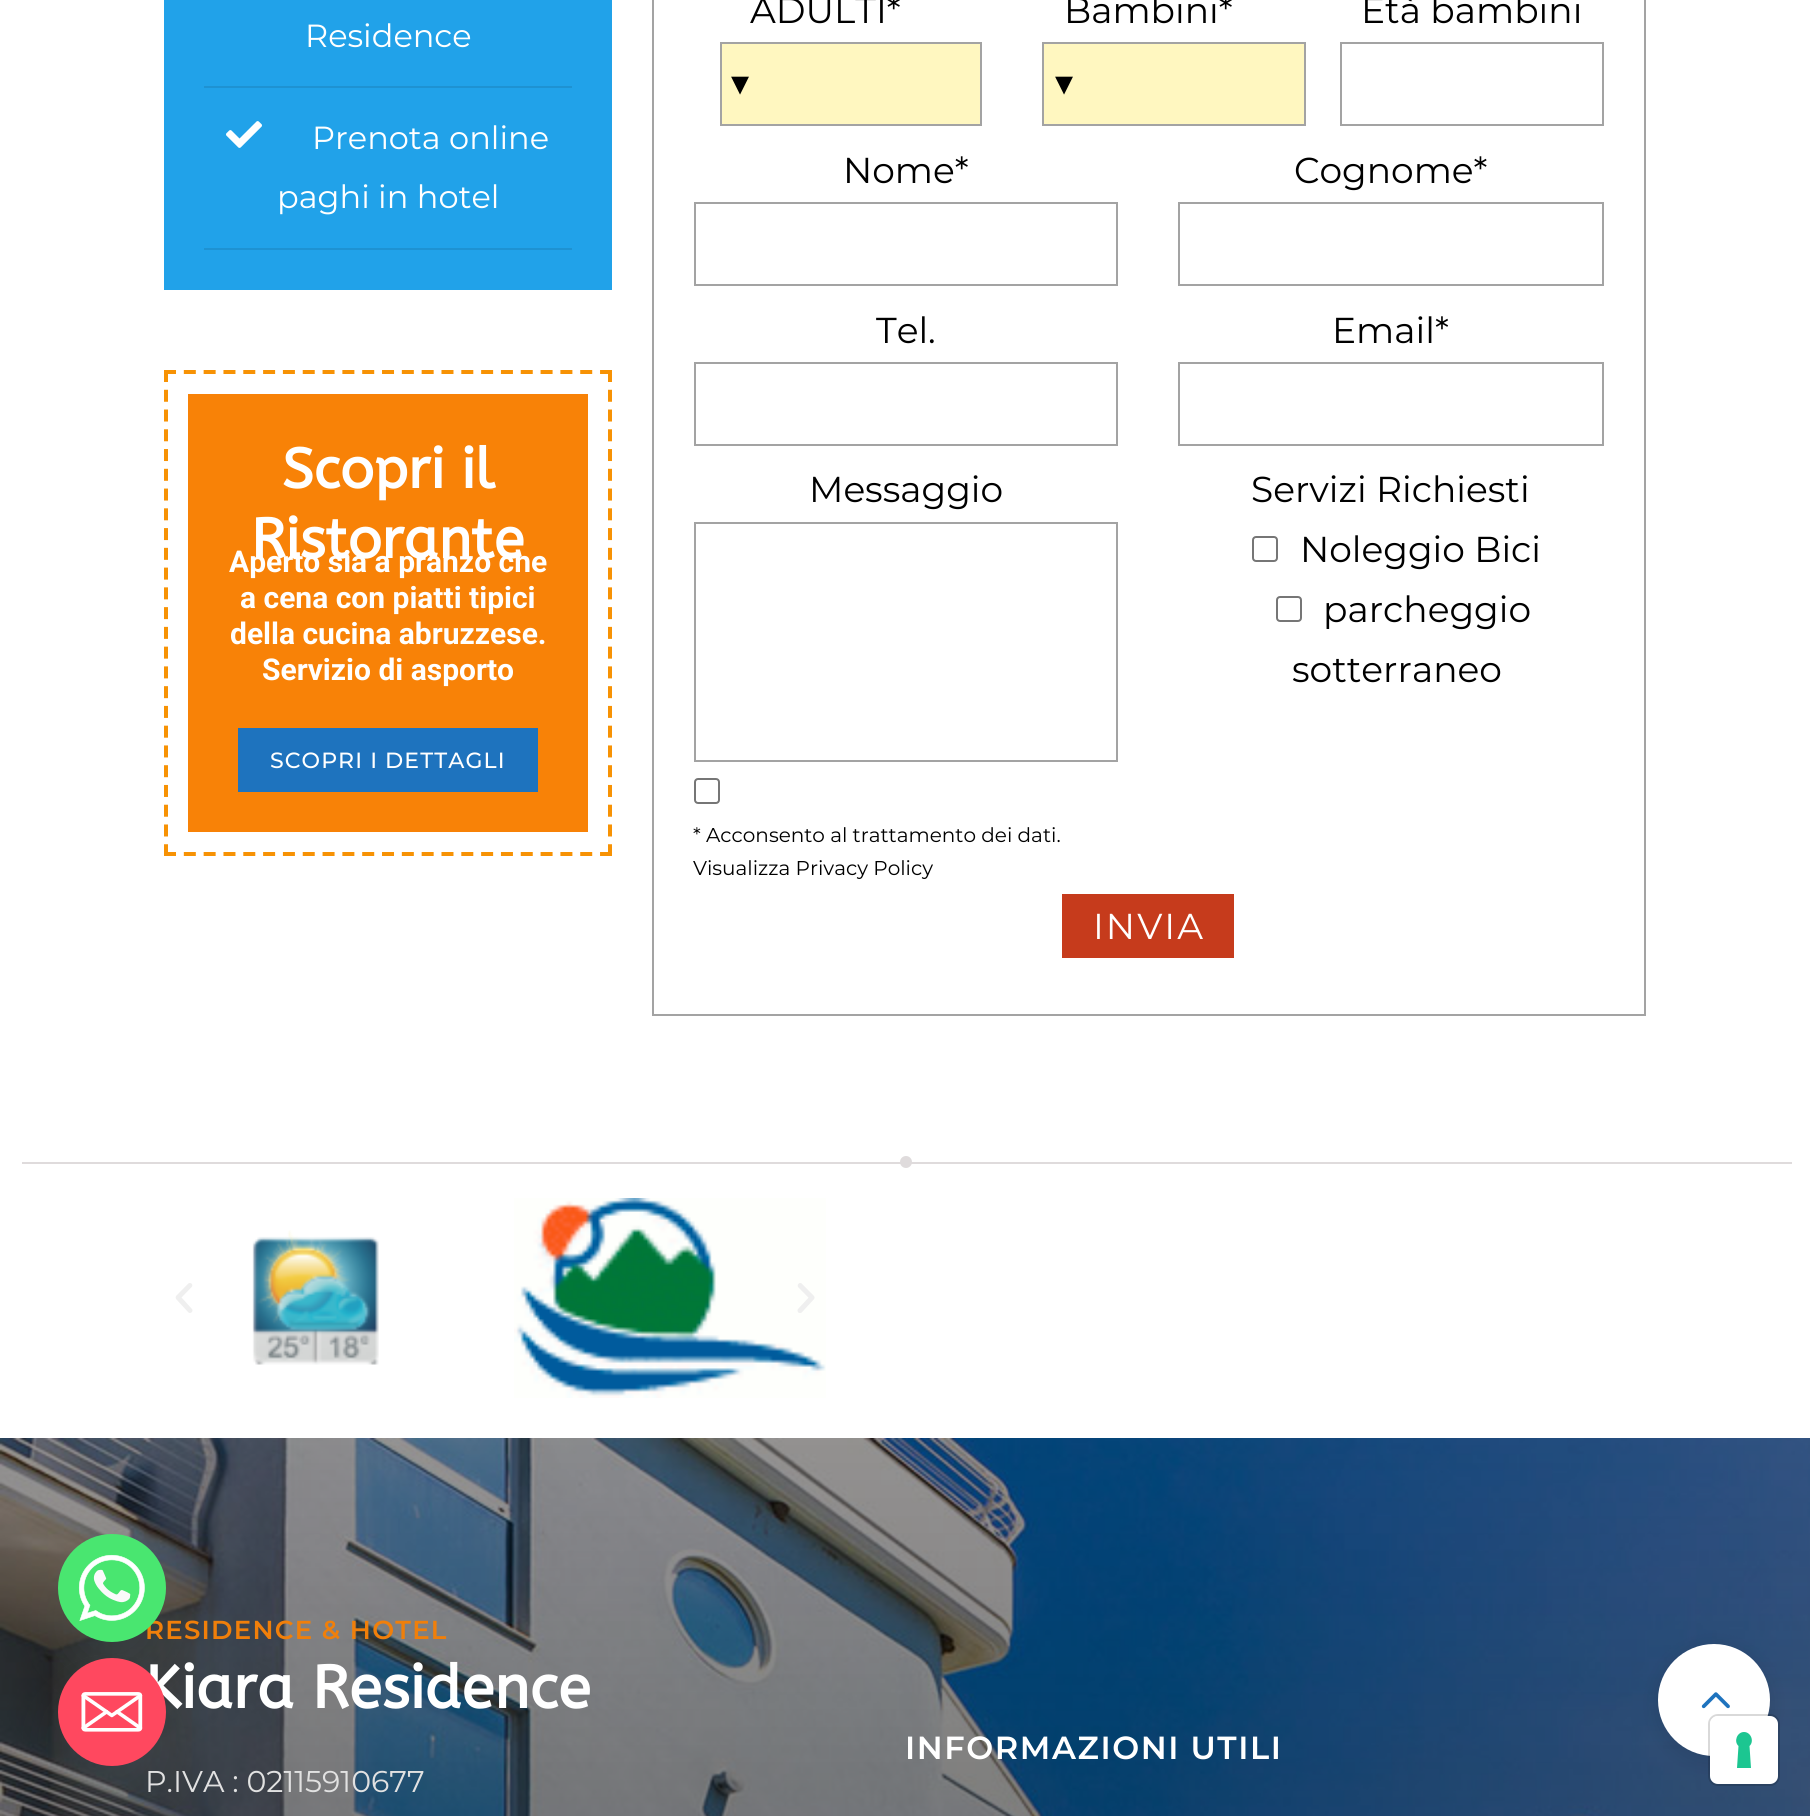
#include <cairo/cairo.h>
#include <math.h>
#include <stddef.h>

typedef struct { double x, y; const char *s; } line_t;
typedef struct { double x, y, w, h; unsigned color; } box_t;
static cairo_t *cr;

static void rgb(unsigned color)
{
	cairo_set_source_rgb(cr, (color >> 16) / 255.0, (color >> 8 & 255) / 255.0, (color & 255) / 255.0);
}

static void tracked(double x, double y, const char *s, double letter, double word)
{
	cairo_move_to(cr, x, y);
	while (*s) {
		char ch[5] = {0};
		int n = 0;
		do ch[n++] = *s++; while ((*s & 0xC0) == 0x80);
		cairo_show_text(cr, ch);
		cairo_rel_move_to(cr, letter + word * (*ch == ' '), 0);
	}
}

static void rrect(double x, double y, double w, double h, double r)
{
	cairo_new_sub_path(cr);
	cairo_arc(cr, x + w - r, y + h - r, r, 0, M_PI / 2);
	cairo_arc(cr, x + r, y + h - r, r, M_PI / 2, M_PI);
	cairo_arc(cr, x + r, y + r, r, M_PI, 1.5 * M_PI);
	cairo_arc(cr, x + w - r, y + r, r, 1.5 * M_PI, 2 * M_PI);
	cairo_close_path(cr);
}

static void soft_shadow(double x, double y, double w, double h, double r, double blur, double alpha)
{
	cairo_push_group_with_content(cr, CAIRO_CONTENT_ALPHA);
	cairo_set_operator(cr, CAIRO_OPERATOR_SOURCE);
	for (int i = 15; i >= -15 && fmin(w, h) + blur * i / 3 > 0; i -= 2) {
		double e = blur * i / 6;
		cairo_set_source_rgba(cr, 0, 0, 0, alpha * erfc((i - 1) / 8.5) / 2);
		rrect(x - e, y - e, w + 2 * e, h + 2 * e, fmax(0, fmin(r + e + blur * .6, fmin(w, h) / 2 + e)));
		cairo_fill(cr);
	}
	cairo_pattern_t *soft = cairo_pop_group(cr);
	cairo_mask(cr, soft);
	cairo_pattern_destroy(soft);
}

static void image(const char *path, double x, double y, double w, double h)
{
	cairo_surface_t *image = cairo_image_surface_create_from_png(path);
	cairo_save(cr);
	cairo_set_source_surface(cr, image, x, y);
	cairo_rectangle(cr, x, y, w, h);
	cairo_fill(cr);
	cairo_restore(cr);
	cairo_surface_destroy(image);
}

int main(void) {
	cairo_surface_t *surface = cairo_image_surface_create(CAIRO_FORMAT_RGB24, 1810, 1816);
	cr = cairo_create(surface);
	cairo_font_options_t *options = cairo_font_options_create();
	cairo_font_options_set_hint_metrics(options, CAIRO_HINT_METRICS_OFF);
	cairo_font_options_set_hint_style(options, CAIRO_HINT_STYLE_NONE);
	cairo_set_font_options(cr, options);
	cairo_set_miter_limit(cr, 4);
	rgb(0xffffff);
	cairo_paint(cr);
	image("img/8.png", 0, 1438, 1810, 378);
	rgb(0x49687e);
	soft_shadow(58, 1566, 108, 108, 54, 24, 0.16);
	{
		static const box_t items[] = {
			{164, 0, 448, 290, 0x21a2e9},
			{204, 86, 368, 2, 0x1e92d2},
			{204, 248, 368, 2, 0x1e92d2},
		};
		for (size_t i = 0; i < sizeof items / sizeof *items; i++) {
			rgb(items[i].color);
			cairo_rectangle(cr, items[i].x, items[i].y, items[i].w, items[i].h);
			cairo_fill(cr);
		}
	}
	image("img/3.png", 226, 121, 36, 27);
	cairo_new_path(cr);
	cairo_move_to(cr, 164, 372);
	cairo_line_to(cr, 612, 372);
	rgb(0xf79204);
	cairo_set_line_width(cr, 4);
	cairo_set_dash(cr, (double[]){12, 7.82}, 2, 0);
	cairo_stroke(cr);
	cairo_new_path(cr);
	cairo_move_to(cr, 610, 370);
	cairo_line_to(cr, 610, 856);
	cairo_set_dash(cr, (double[]){12, 7.76}, 2, 0);
	cairo_stroke(cr);
	cairo_new_path(cr);
	cairo_move_to(cr, 164, 854);
	cairo_line_to(cr, 612, 854);
	cairo_set_dash(cr, (double[]){12, 7.82}, 2, 0);
	cairo_stroke(cr);
	cairo_new_path(cr);
	cairo_move_to(cr, 166, 370);
	cairo_line_to(cr, 166, 856);
	cairo_set_dash(cr, (double[]){12, 7.76}, 2, 0);
	cairo_stroke(cr);
	rgb(0xf88207);
	cairo_rectangle(cr, 188, 394, 400, 438);
	cairo_fill(cr);
	rgb(0x1e73be);
	cairo_rectangle(cr, 238, 728, 300, 64);
	cairo_fill(cr);
	cairo_rectangle(cr, 653, -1, 992, 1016);
	rgb(0xa3a3a3);
	cairo_set_line_width(cr, 2);
	cairo_set_dash(cr, NULL, 0, 0);
	cairo_stroke(cr);
	rgb(0xfff7c0);
	cairo_rectangle(cr, 721, 43, 260, 82);
	cairo_fill_preserve(cr);
	rgb(0xa3a3a3);
	cairo_stroke(cr);
	rgb(0xfff7c0);
	cairo_rectangle(cr, 1043, 43, 262, 82);
	cairo_fill_preserve(cr);
	rgb(0xa3a3a3);
	cairo_stroke(cr);
	cairo_rectangle(cr, 1341, 43, 262, 82);
	cairo_stroke(cr);
	cairo_rectangle(cr, 695, 203, 422, 82);
	cairo_stroke(cr);
	cairo_rectangle(cr, 1179, 203, 424, 82);
	cairo_stroke(cr);
	cairo_rectangle(cr, 695, 363, 422, 82);
	cairo_stroke(cr);
	cairo_rectangle(cr, 1179, 363, 424, 82);
	cairo_stroke(cr);
	cairo_rectangle(cr, 695, 523, 422, 238);
	cairo_stroke(cr);
	rrect(1253, 537, 24, 24, 3);
	rgb(0x767676);
	cairo_stroke(cr);
	rrect(1277, 597, 24, 24, 3);
	cairo_stroke(cr);
	rrect(695, 779, 24, 24, 3);
	cairo_stroke(cr);
	rgb(0xc63b1c);
	cairo_rectangle(cr, 1062, 894, 172, 64);
	cairo_fill(cr);
	rgb(0xdfdbdc);
	cairo_rectangle(cr, 22, 1162, 1770, 2);
	cairo_fill(cr);
	cairo_arc(cr, 906, 1162, 6, 0, 2 * M_PI);
	cairo_fill(cr);
	image("img/4.png", 175, 1283, 18, 30);
	image("img/5.png", 252, 1230, 127, 135);
	image("img/6.png", 514, 1198, 312, 200);
	image("img/7.png", 797, 1283, 18, 30);
	rgb(0x000000);
	soft_shadow(1658, 1648, 112, 112, 56, 10, 0.1);
	rgb(0xffffff);
	cairo_arc(cr, 1714, 1700, 56, 0, 2 * M_PI);
	cairo_fill(cr);
	image("img/9.png", 1701, 1692, 29, 17);
	rrect(1709, 1715, 70, 70, 9);
	cairo_set_source_rgba(cr, 0, 0, 0, 0.15);
	cairo_stroke(cr);
	rgb(0xffffff);
	rrect(1710, 1716, 68, 68, 8);
	cairo_fill(cr);
	rgb(0x1cc691);
	cairo_set_fill_rule(cr, CAIRO_FILL_RULE_EVEN_ODD);
	cairo_new_path(cr);
	cairo_move_to(cr, 1744, 1732);
	cairo_curve_to(cr, 1751, 1732, 1754.5, 1741.5, 1749.5, 1746);
	cairo_line_to(cr, 1751, 1768);
	cairo_line_to(cr, 1737, 1768);
	cairo_line_to(cr, 1738.5, 1746);
	cairo_curve_to(cr, 1733.5, 1741.5, 1737, 1732, 1744, 1732);
	cairo_close_path(cr);
	cairo_fill(cr);
	cairo_select_font_face(cr, "Montserrat", CAIRO_FONT_SLANT_NORMAL, CAIRO_FONT_WEIGHT_NORMAL);
	cairo_set_font_size(cr, 32);
	rgb(0xffffff);
	{
		static const line_t items[] = {
			{305, 47, "Residence"},
			{312, 149, "Prenota online"},
			{277, 208, "paghi in hotel"},
		};
		for (size_t i = 0; i < sizeof items / sizeof *items; i++) {
			cairo_move_to(cr, items[i].x, items[i].y);
			cairo_show_text(cr, items[i].s);
		}
	}
	cairo_select_font_face(cr, "ABeeZee", CAIRO_FONT_SLANT_NORMAL, CAIRO_FONT_WEIGHT_BOLD);
	cairo_set_font_size(cr, 56);
	cairo_move_to(cr, 282, 488);
	cairo_show_text(cr, "Scopri il");
	cairo_move_to(cr, 251, 558);
	cairo_show_text(cr, "Ristorante");
	cairo_select_font_face(cr, "Roboto", CAIRO_FONT_SLANT_NORMAL, CAIRO_FONT_WEIGHT_BOLD);
	cairo_set_font_size(cr, 30);
	{
		static const line_t items[] = {
			{229, 572, "Aperto sia a pranzo che"},
			{240, 608, "a cena con piatti tipici"},
			{230, 644, "della cucina abruzzese."},
			{262, 680, "Servizio di asporto"},
		};
		for (size_t i = 0; i < sizeof items / sizeof *items; i++) {
			cairo_move_to(cr, items[i].x, items[i].y);
			cairo_show_text(cr, items[i].s);
		}
	}
	cairo_select_font_face(cr, "Montserrat Medium", CAIRO_FONT_SLANT_NORMAL, CAIRO_FONT_WEIGHT_NORMAL);
	cairo_set_font_size(cr, 22);
	tracked(270, 768, "SCOPRI I DETTAGLI", 1.1, 0);
	cairo_select_font_face(cr, "Montserrat", CAIRO_FONT_SLANT_NORMAL, CAIRO_FONT_WEIGHT_NORMAL);
	cairo_set_font_size(cr, 36);
	rgb(0x000000);
	cairo_move_to(cr, 750, 23);
	cairo_show_text(cr, "ADULTI*");
	cairo_select_font_face(cr, "DejaVu Sans", CAIRO_FONT_SLANT_NORMAL, CAIRO_FONT_WEIGHT_NORMAL);
	cairo_move_to(cr, 731, 95);
	cairo_show_text(cr, "▾");
	cairo_select_font_face(cr, "Montserrat", CAIRO_FONT_SLANT_NORMAL, CAIRO_FONT_WEIGHT_NORMAL);
	cairo_move_to(cr, 1064, 23);
	cairo_show_text(cr, "Bambini*");
	cairo_select_font_face(cr, "DejaVu Sans", CAIRO_FONT_SLANT_NORMAL, CAIRO_FONT_WEIGHT_NORMAL);
	cairo_move_to(cr, 1055, 95);
	cairo_show_text(cr, "▾");
	cairo_select_font_face(cr, "Montserrat", CAIRO_FONT_SLANT_NORMAL, CAIRO_FONT_WEIGHT_NORMAL);
	{
		static const line_t items[] = {
			{1361, 23, "Età bambini"},
			{843, 183, "Nome*"},
			{1294, 183, "Cognome*"},
			{876, 343, "Tel."},
			{1332, 343, "Email*"},
			{809, 502, "Messaggio"},
			{1251, 502, "Servizi Richiesti"},
			{1300, 562, "Noleggio Bici"},
			{1323, 622, "parcheggio"},
			{1292, 682, "sotterraneo"},
		};
		for (size_t i = 0; i < sizeof items / sizeof *items; i++) {
			cairo_move_to(cr, items[i].x, items[i].y);
			cairo_show_text(cr, items[i].s);
		}
	}
	cairo_set_font_size(cr, 20);
	cairo_move_to(cr, 693, 842);
	cairo_show_text(cr, "* Acconsento al trattamento dei dati.");
	cairo_move_to(cr, 693, 875);
	cairo_show_text(cr, "Visualizza Privacy Policy");
	cairo_set_font_size(cr, 36);
	rgb(0xffffff);
	tracked(1093, 939, "INVIA", 2, 0);
	cairo_select_font_face(cr, "Montserrat SemiBold", CAIRO_FONT_SLANT_NORMAL, CAIRO_FONT_WEIGHT_NORMAL);
	cairo_set_font_size(cr, 26);
	rgb(0xf07f0a);
	tracked(145, 1639, "RESIDENCE & HOTEL", 1.25, 0);
	image("img/1.png", 58, 1534, 108, 108);
	rgb(0x49687e);
	soft_shadow(58, 1690, 108, 108, 54, 24, 0.16);
	cairo_select_font_face(cr, "ABeeZee", CAIRO_FONT_SLANT_NORMAL, CAIRO_FONT_WEIGHT_BOLD);
	cairo_set_font_size(cr, 60);
	rgb(0xffffff);
	cairo_move_to(cr, 145, 1708);
	cairo_show_text(cr, "Kiara Residence");
	image("img/2.png", 58, 1658, 108, 108);
	cairo_select_font_face(cr, "Montserrat", CAIRO_FONT_SLANT_NORMAL, CAIRO_FONT_WEIGHT_NORMAL);
	cairo_set_font_size(cr, 30);
	rgb(0xe1e1e1);
	cairo_move_to(cr, 145, 1792);
	cairo_show_text(cr, "P.IVA : 02115910677");
	cairo_select_font_face(cr, "Montserrat SemiBold", CAIRO_FONT_SLANT_NORMAL, CAIRO_FONT_WEIGHT_NORMAL);
	cairo_set_font_size(cr, 32);
	rgb(0xffffff);
	tracked(905, 1759, "INFORMAZIONI UTILI", 1.6, 0);
	cairo_surface_write_to_png(surface, "page.png");
	cairo_font_options_destroy(options);
	cairo_destroy(cr);
	cairo_surface_destroy(surface);
	return 0;
}
